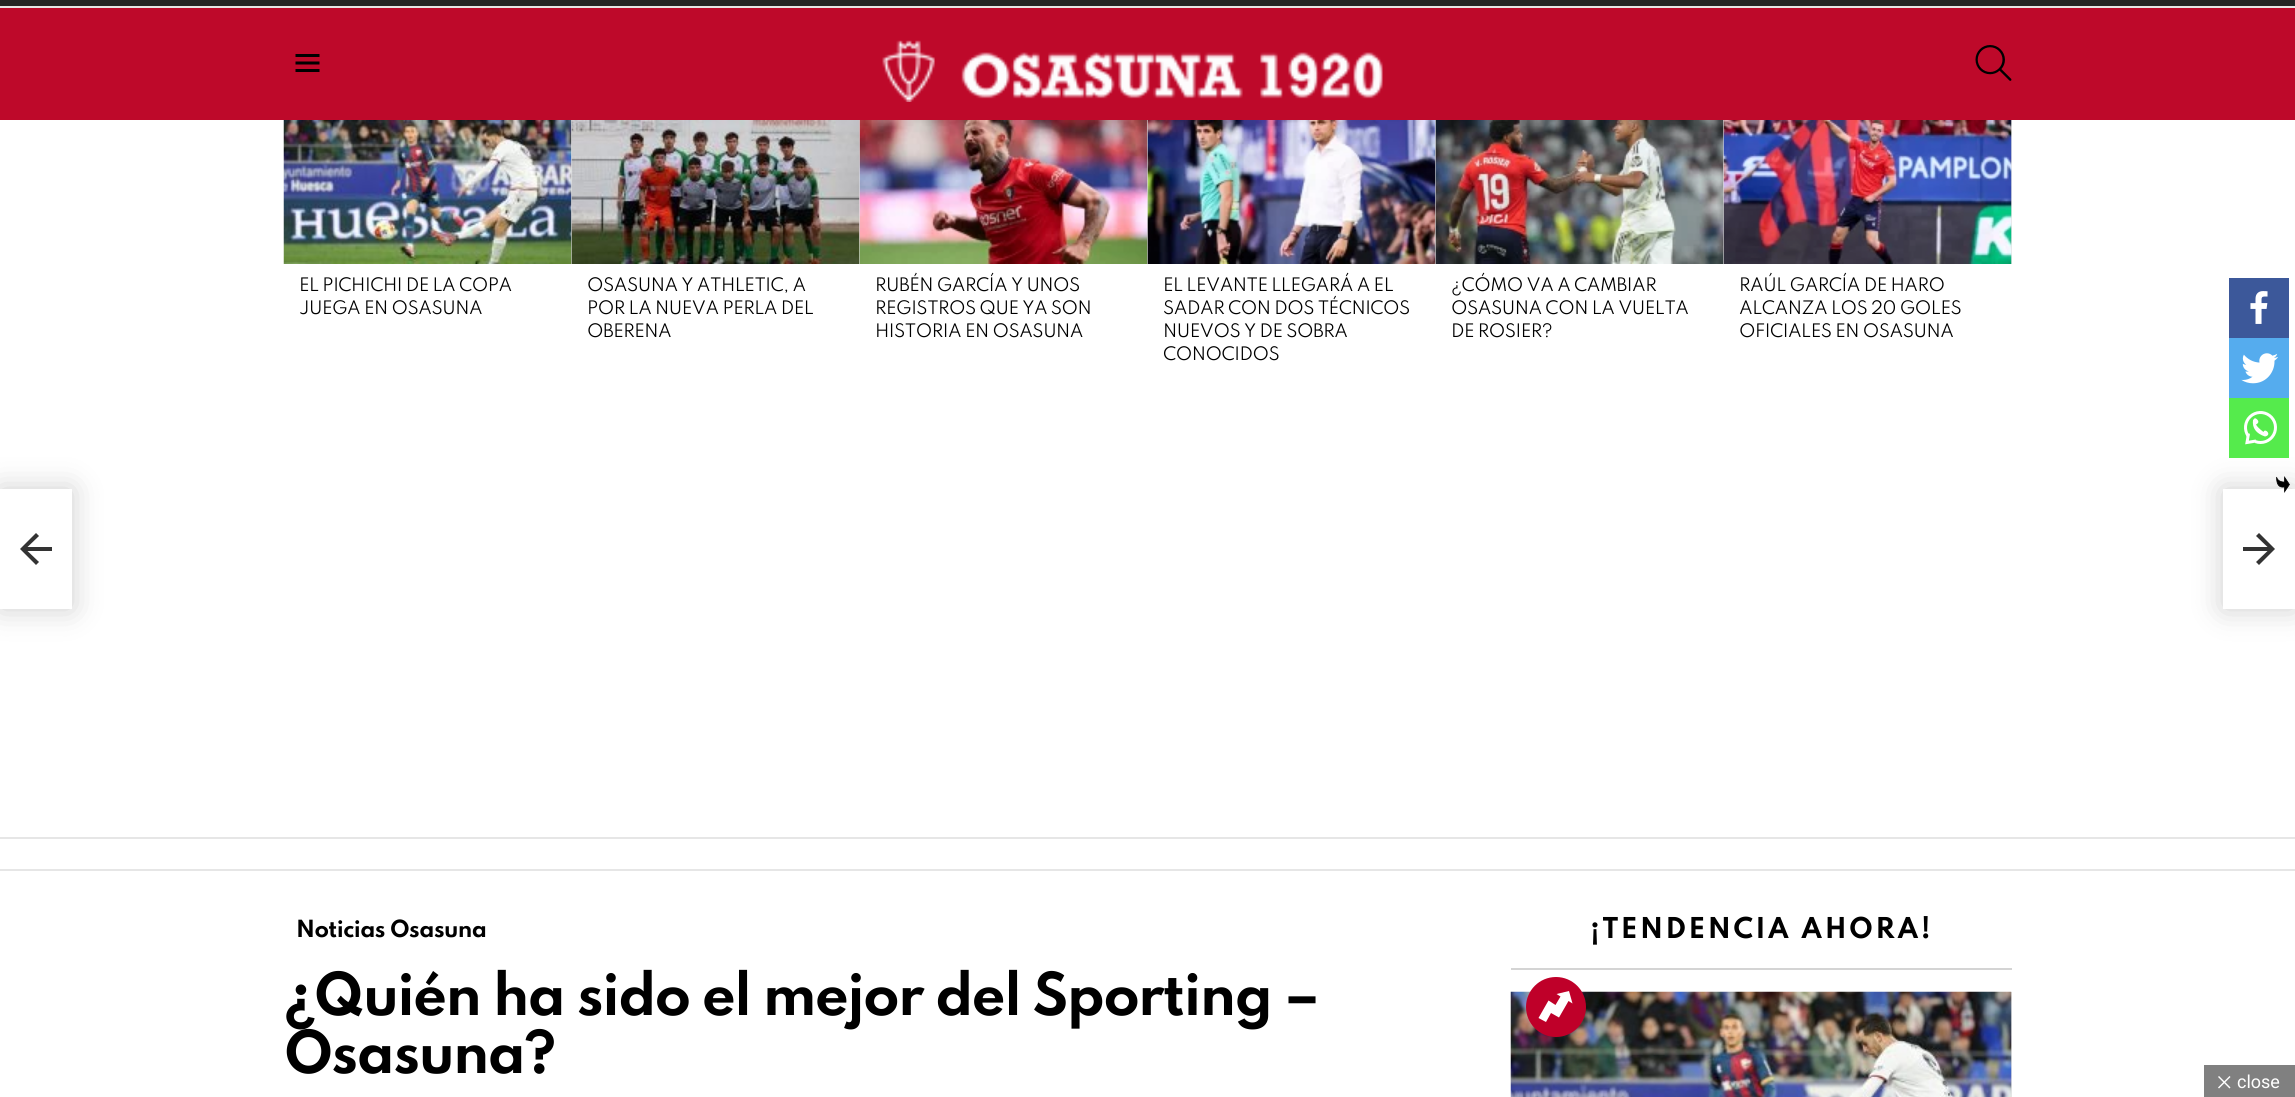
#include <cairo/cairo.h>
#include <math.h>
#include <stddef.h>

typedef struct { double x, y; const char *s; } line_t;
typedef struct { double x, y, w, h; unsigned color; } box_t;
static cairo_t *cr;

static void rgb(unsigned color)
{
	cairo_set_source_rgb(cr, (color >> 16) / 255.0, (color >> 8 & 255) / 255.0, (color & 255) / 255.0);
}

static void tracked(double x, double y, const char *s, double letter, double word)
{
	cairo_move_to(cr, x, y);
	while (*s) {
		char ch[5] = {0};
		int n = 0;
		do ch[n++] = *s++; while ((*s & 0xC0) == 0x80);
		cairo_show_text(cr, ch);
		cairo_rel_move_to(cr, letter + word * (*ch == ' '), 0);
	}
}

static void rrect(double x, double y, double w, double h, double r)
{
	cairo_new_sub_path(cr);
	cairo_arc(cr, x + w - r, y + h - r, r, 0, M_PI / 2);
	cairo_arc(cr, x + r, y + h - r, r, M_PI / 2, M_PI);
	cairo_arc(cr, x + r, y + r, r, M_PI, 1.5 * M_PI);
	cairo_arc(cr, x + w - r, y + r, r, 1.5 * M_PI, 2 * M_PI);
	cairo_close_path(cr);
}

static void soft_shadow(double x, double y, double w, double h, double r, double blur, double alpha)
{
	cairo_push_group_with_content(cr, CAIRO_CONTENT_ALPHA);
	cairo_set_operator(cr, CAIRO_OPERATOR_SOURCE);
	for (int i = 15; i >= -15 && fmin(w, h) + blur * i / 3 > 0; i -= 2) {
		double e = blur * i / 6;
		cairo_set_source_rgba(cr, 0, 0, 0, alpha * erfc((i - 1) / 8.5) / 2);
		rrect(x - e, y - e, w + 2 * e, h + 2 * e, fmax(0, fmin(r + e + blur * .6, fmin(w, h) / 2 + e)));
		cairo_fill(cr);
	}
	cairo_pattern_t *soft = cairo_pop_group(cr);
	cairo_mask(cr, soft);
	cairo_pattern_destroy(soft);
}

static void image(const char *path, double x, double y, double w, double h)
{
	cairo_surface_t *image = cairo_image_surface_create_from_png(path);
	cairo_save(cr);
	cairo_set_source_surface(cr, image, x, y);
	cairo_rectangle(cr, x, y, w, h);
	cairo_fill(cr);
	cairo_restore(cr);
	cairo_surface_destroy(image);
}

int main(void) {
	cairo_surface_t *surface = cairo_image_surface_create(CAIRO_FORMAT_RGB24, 2295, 1097);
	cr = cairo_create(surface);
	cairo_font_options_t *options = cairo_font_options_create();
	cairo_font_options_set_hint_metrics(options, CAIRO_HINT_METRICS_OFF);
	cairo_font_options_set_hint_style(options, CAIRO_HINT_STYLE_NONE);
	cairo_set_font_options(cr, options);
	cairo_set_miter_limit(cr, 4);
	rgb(0xffffff);
	cairo_paint(cr);
	{
		static const box_t items[] = {
			{0, 0, 2295, 6, 0x252525},
			{0, 6, 2295, 2, 0xe6e6e6},
			{0, 8, 2295, 112, 0xbe092a},
		};
		for (size_t i = 0; i < sizeof items / sizeof *items; i++) {
			rgb(items[i].color);
			cairo_rectangle(cr, items[i].x, items[i].y, items[i].w, items[i].h);
			cairo_fill(cr);
		}
	}
	image("img/1.png", 295, 54, 25, 18);
	image("img/2.png", 882, 40, 501, 62);
	image("img/3.png", 1975, 45, 37, 36);
	rgb(0xe6e6e6);
	cairo_rectangle(cr, 0, 837, 2295, 2);
	cairo_fill(cr);
	cairo_rectangle(cr, 571, 120, 1, 144);
	cairo_fill(cr);
	image("img/4.png", 283, 120, 289, 144);
	cairo_rectangle(cr, 859, 120, 1, 144);
	cairo_fill(cr);
	image("img/5.png", 571, 120, 289, 144);
	cairo_rectangle(cr, 1147, 120, 1, 144);
	cairo_fill(cr);
	image("img/6.png", 859, 120, 289, 144);
	cairo_rectangle(cr, 1435, 120, 1, 144);
	cairo_fill(cr);
	image("img/7.png", 1147, 120, 289, 144);
	cairo_rectangle(cr, 1723, 120, 1, 144);
	cairo_fill(cr);
	image("img/8.png", 1435, 120, 289, 144);
	cairo_rectangle(cr, 2011, 120, 1, 144);
	cairo_fill(cr);
	image("img/9.png", 1723, 120, 289, 144);
	cairo_rectangle(cr, 0, 869, 2295, 2);
	cairo_fill(cr);
	cairo_save(cr);
	cairo_set_fill_rule(cr, CAIRO_FILL_RULE_EVEN_ODD);
	cairo_new_path(cr);
	cairo_move_to(cr, 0, 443);
	cairo_line_to(cr, 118, 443);
	cairo_line_to(cr, 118, 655);
	cairo_line_to(cr, 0, 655);
	cairo_close_path(cr);
	cairo_move_to(cr, 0, 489);
	cairo_line_to(cr, 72, 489);
	cairo_line_to(cr, 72, 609);
	cairo_line_to(cr, 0, 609);
	cairo_close_path(cr);
	cairo_clip(cr);
	rgb(0x000000);
	soft_shadow(0, 489, 72, 120, 0, 15, 0.2);
	cairo_restore(cr);
	rgb(0x333333);
	cairo_new_path(cr);
	cairo_move_to(cr, 52, 547);
	cairo_line_to(cr, 27.5, 547);
	cairo_line_to(cr, 39, 536);
	cairo_line_to(cr, 36, 533);
	cairo_line_to(cr, 20, 549);
	cairo_line_to(cr, 36, 565);
	cairo_line_to(cr, 39, 562);
	cairo_line_to(cr, 27.5, 551);
	cairo_line_to(cr, 52, 551);
	cairo_close_path(cr);
	cairo_fill(cr);
	cairo_save(cr);
	cairo_set_fill_rule(cr, CAIRO_FILL_RULE_EVEN_ODD);
	cairo_new_path(cr);
	cairo_move_to(cr, 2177, 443);
	cairo_line_to(cr, 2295, 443);
	cairo_line_to(cr, 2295, 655);
	cairo_line_to(cr, 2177, 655);
	cairo_close_path(cr);
	cairo_move_to(cr, 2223, 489);
	cairo_line_to(cr, 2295, 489);
	cairo_line_to(cr, 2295, 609);
	cairo_line_to(cr, 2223, 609);
	cairo_close_path(cr);
	cairo_clip(cr);
	rgb(0x000000);
	soft_shadow(2223, 489, 72, 120, 0, 15, 0.2);
	cairo_restore(cr);
	cairo_new_path(cr);
	cairo_move_to(cr, 2243, 551);
	cairo_line_to(cr, 2267.5, 551);
	cairo_line_to(cr, 2256, 562);
	cairo_line_to(cr, 2259, 565);
	cairo_line_to(cr, 2275, 549);
	cairo_line_to(cr, 2259, 533);
	cairo_line_to(cr, 2256, 536);
	cairo_line_to(cr, 2267.5, 547);
	cairo_line_to(cr, 2243, 547);
	cairo_close_path(cr);
	cairo_fill(cr);
	rgb(0x3c589a);
	cairo_rectangle(cr, 2229, 278, 60, 60);
	cairo_fill(cr);
	image("img/10.png", 2250, 291, 18, 33);
	rgb(0x55acee);
	cairo_rectangle(cr, 2229, 338, 60, 60);
	cairo_fill(cr);
	image("img/11.png", 2241, 353, 37, 31);
	rgb(0x55eb4c);
	cairo_rectangle(cr, 2229, 398, 60, 60);
	cairo_fill(cr);
	image("img/12.png", 2244, 411, 33, 34);
	image("img/13.png", 2276, 476, 14, 17);
	rgb(0xd4d4d4);
	cairo_rectangle(cr, 1511, 968, 501, 2);
	cairo_fill(cr);
	rgb(0xe6e6e6);
	cairo_rectangle(cr, 2011, 992, 1, 105);
	cairo_fill(cr);
	image("img/14.png", 1510, 991, 502, 106);
	rgb(0xbf0029);
	cairo_arc(cr, 1556, 1007, 30, 0, 2 * M_PI);
	cairo_fill(cr);
	rgb(0xffffff);
	cairo_new_path(cr);
	cairo_move_to(cr, 1555.5, 1005);
	cairo_line_to(cr, 1560.5, 996.5);
	cairo_line_to(cr, 1556.5, 994);
	cairo_line_to(cr, 1569, 991);
	cairo_line_to(cr, 1572.5, 1003.5);
	cairo_line_to(cr, 1568.5, 1001);
	cairo_line_to(cr, 1559, 1017.5);
	cairo_line_to(cr, 1551, 1013);
	cairo_line_to(cr, 1546, 1022);
	cairo_line_to(cr, 1538.5, 1018);
	cairo_line_to(cr, 1548.5, 1000.5);
	cairo_close_path(cr);
	cairo_fill(cr);
	rgb(0x808080);
	cairo_rectangle(cr, 2204, 1065, 91, 32);
	cairo_fill(cr);
	rgb(0xffffff);
	cairo_new_path(cr);
	cairo_move_to(cr, 2219, 1076);
	cairo_line_to(cr, 2230.5, 1087.5);
	cairo_line_to(cr, 2229.5, 1088.5);
	cairo_line_to(cr, 2218, 1077);
	cairo_close_path(cr);
	cairo_fill(cr);
	cairo_new_path(cr);
	cairo_move_to(cr, 2229.5, 1076);
	cairo_line_to(cr, 2230.5, 1077);
	cairo_line_to(cr, 2219, 1088.5);
	cairo_line_to(cr, 2218, 1087.5);
	cairo_close_path(cr);
	cairo_fill(cr);
	cairo_select_font_face(cr, "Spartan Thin", CAIRO_FONT_SLANT_NORMAL, CAIRO_FONT_WEIGHT_NORMAL);
	cairo_set_font_size(cr, 16.5);
	rgb(0x000000);
	{
		static const line_t items[] = {
			{299, 291, "EL PICHICHI DE LA COPA"},
			{299, 314, "JUEGA EN OSASUNA"},
			{587, 291, "OSASUNA Y ATHLETIC, A"},
			{587, 314, "POR LA NUEVA PERLA DEL"},
			{587, 337, "OBERENA"},
			{875, 291, "RUBÉN GARCÍA Y UNOS"},
			{875, 314, "REGISTROS QUE YA SON"},
			{875, 337, "HISTORIA EN OSASUNA"},
			{1163, 291, "EL LEVANTE LLEGARÁ A EL"},
			{1163, 314, "SADAR CON DOS TÉCNICOS"},
			{1163, 337, "NUEVOS Y DE SOBRA"},
			{1163, 360, "CONOCIDOS"},
			{1451, 291, "¿CÓMO VA A CAMBIAR"},
			{1451, 314, "OSASUNA CON LA VUELTA"},
			{1451, 337, "DE ROSIER?"},
			{1739, 291, "RAÚL GARCÍA DE HARO"},
			{1739, 314, "ALCANZA LOS 20 GOLES"},
			{1739, 337, "OFICIALES EN OSASUNA"},
		};
		for (size_t i = 0; i < sizeof items / sizeof *items; i++) {
			tracked(items[i].x, items[i].y, items[i].s, -0.5, 0);
		}
	}
	cairo_select_font_face(cr, "Spartan Thin", CAIRO_FONT_SLANT_NORMAL, CAIRO_FONT_WEIGHT_BOLD);
	cairo_set_font_size(cr, 21);
	tracked(296, 937, "Noticias Osasuna", -0.6, 0);
	cairo_set_font_size(cr, 52.5);
	tracked(284, 1015, "¿Quién ha sido el mejor del Sporting –", -1.6, 0);
	tracked(284, 1073, "Osasuna?", -1.6, 0);
	cairo_set_font_size(cr, 25.5);
	tracked(1590, 938, "¡TENDENCIA AHORA!", 2.5, 0);
	cairo_select_font_face(cr, "Roboto", CAIRO_FONT_SLANT_NORMAL, CAIRO_FONT_WEIGHT_NORMAL);
	cairo_set_font_size(cr, 18);
	rgb(0xffffff);
	cairo_move_to(cr, 2237, 1088);
	cairo_show_text(cr, "close");
	cairo_surface_write_to_png(surface, "page.png");
	cairo_font_options_destroy(options);
	cairo_destroy(cr);
	cairo_surface_destroy(surface);
	return 0;
}
